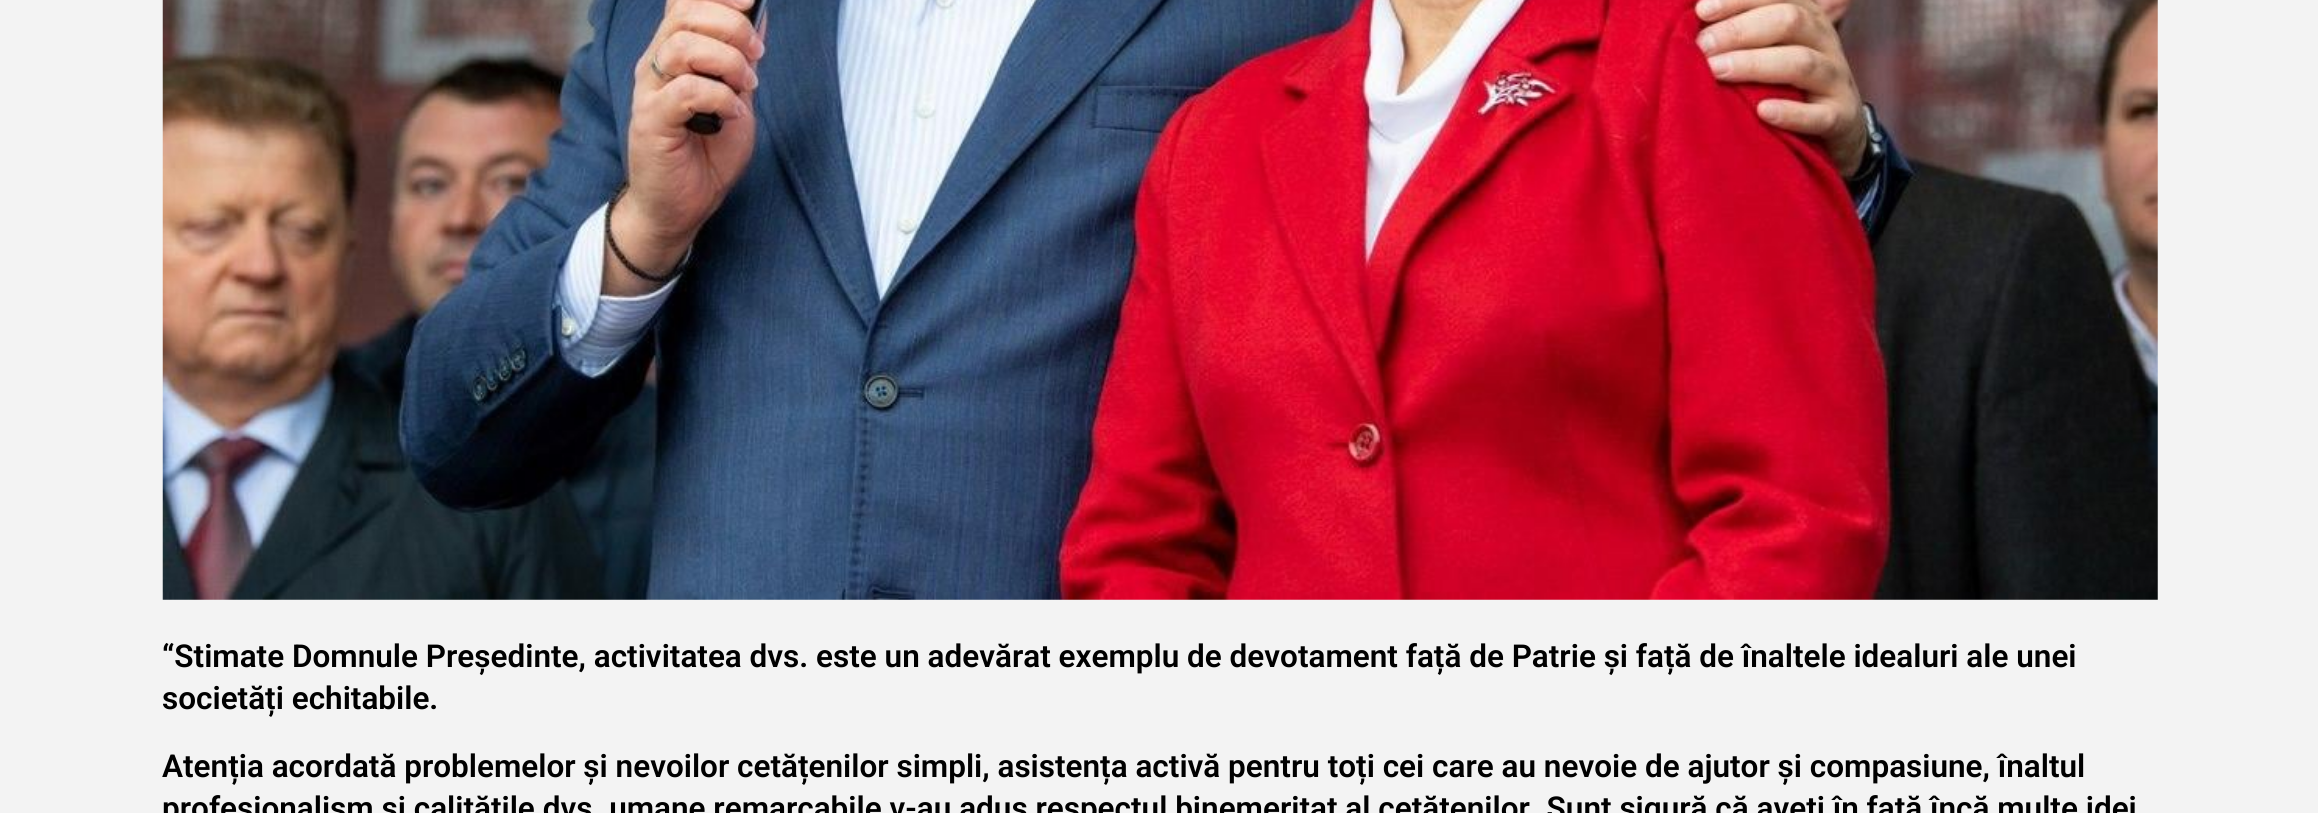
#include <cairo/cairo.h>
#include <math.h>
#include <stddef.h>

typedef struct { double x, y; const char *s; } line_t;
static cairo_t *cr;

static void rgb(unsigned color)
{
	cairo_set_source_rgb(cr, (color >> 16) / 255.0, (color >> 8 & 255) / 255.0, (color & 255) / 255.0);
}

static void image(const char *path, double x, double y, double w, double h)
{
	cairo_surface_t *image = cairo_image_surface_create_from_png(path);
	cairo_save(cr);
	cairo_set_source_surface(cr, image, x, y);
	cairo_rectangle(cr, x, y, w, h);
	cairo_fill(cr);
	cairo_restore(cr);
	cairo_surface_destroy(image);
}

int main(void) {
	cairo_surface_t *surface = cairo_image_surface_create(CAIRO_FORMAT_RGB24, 2318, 813);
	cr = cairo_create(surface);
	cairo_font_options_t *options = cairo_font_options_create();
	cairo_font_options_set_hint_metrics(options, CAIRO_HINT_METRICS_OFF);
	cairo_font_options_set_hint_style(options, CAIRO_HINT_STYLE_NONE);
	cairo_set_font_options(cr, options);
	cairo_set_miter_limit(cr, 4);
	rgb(0xf3f3f3);
	cairo_paint(cr);
	image("img/1.png", 162, 0, 1996, 600);
	cairo_select_font_face(cr, "Roboto SemiBold", CAIRO_FONT_SLANT_NORMAL, CAIRO_FONT_WEIGHT_NORMAL);
	cairo_set_font_size(cr, 31.5);
	rgb(0x000000);
	{
		static const line_t items[] = {
			{162, 667, "“Stimate Domnule Președinte, activitatea dvs. este un adevărat exemplu de devotament față de Patrie și față de înaltele idealuri ale unei"},
			{162, 709, "societăți echitabile."},
			{162, 777, "Atenția acordată problemelor și nevoilor cetățenilor simpli, asistența activă pentru toți cei care au nevoie de ajutor și compasiune, înaltul"},
			{162, 819, "profesionalism și calitățile dvs. umane remarcabile v-au adus respectul binemeritat al cetățenilor. Sunt sigură că aveți în față încă multe idei"},
		};
		for (size_t i = 0; i < sizeof items / sizeof *items; i++) {
			cairo_move_to(cr, items[i].x, items[i].y);
			cairo_show_text(cr, items[i].s);
		}
	}
	cairo_surface_write_to_png(surface, "page.png");
	cairo_font_options_destroy(options);
	cairo_destroy(cr);
	cairo_surface_destroy(surface);
	return 0;
}
